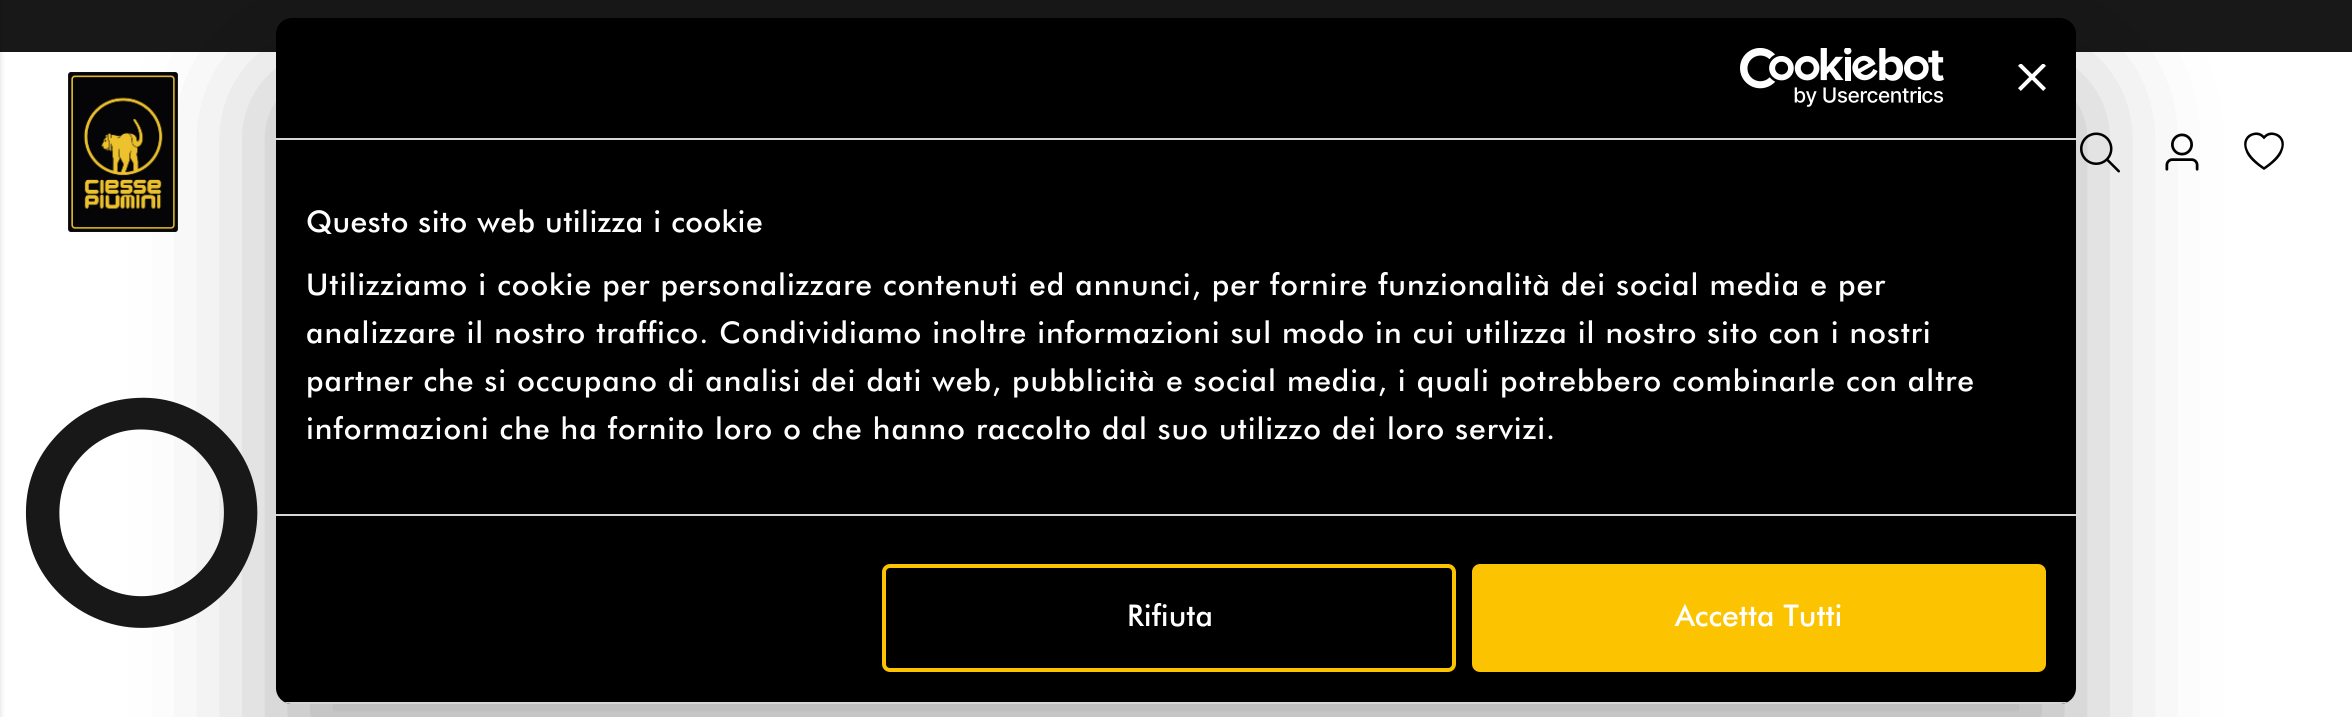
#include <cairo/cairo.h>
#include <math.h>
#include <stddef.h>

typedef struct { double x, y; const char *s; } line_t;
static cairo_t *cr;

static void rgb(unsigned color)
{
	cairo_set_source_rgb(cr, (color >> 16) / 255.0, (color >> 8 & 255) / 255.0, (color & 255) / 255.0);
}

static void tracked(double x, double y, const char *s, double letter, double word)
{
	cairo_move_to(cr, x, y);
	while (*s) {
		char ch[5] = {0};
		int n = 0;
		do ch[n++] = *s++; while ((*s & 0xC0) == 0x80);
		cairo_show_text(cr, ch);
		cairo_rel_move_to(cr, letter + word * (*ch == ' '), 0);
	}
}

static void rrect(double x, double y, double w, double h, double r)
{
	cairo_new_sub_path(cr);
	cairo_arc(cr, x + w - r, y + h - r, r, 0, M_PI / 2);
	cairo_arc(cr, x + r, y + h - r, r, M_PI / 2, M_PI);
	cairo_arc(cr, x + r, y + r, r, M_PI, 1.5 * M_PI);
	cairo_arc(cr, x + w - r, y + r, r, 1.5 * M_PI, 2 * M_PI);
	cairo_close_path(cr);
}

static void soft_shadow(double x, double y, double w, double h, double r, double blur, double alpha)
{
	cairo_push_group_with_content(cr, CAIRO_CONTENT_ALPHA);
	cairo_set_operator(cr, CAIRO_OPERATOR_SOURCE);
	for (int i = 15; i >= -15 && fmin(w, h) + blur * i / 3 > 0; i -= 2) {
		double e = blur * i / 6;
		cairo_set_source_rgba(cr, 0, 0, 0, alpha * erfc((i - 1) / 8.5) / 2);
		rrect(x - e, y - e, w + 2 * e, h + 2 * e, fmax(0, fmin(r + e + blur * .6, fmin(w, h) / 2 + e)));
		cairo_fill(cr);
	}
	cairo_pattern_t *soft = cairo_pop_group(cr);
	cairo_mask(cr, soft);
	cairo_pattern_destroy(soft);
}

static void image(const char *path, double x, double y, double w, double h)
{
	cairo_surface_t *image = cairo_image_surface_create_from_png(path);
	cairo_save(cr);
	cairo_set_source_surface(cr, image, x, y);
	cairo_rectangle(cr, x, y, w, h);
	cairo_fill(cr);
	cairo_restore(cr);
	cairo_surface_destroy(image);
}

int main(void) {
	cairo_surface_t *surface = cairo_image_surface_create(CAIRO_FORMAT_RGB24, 2352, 717);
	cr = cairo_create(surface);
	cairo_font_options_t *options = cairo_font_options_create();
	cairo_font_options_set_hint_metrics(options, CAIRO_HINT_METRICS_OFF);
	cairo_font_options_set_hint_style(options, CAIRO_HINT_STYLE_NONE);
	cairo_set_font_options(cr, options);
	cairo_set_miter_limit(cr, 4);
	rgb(0xffffff);
	cairo_paint(cr);
	rgb(0x181818);
	cairo_rectangle(cr, 0, 0, 2352, 52);
	cairo_fill(cr);
	rgb(0x000000);
	soft_shadow(-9, 0, 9, 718, 0, 3, 0.15);
	image("img/1.png", 68, 72, 110, 160);
	image("img/2.png", 2080, 132, 40, 41);
	image("img/3.png", 2165, 133, 34, 38);
	image("img/4.png", 2244, 132, 40, 38);
	soft_shadow(276, 82, 1800, 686, 16, 68, 0.3);
	rgb(0x000000);
	rrect(276, 18, 1800, 686, 16);
	cairo_fill(cr);
	rgb(0xd6d6d6);
	cairo_rectangle(cr, 276, 138, 1800, 2);
	cairo_fill(cr);
	image("img/5.png", 1740, 48, 204, 59);
	image("img/6.png", 2018, 64, 28, 27);
	cairo_rectangle(cr, 276, 514, 1800, 2);
	cairo_fill(cr);
	cairo_save(cr);
	rrect(276, 18, 1800, 686, 16);
	cairo_clip(cr);
	cairo_rectangle(cr, 276, 702, 1800, 2);
	cairo_fill(cr);
	cairo_restore(cr);
	rrect(884, 566, 570, 104, 6);
	rgb(0xfcc300);
	cairo_set_line_width(cr, 4);
	cairo_stroke(cr);
	rrect(1474, 566, 570, 104, 6);
	cairo_fill_preserve(cr);
	cairo_stroke(cr);
	cairo_select_font_face(cr, "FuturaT", CAIRO_FONT_SLANT_NORMAL, CAIRO_FONT_WEIGHT_BOLD);
	cairo_set_font_size(cr, 320);
	rgb(0x181818);
	cairo_move_to(cr, 10, 624);
	cairo_show_text(cr, "O");
	cairo_select_font_face(cr, "Futura Medium", CAIRO_FONT_SLANT_NORMAL, CAIRO_FONT_WEIGHT_NORMAL);
	cairo_set_font_size(cr, 30);
	rgb(0xffffff);
	tracked(306, 232, "Questo sito web utilizza i cookie", 0.5, 0);
	{
		static const line_t items[] = {
			{306, 295, "Utilizziamo i cookie per personalizzare contenuti ed annunci, per fornire funzionalità dei social media e per"},
			{306, 343, "analizzare il nostro traffico. Condividiamo inoltre informazioni sul modo in cui utilizza il nostro sito con i nostri"},
			{306, 391, "partner che si occupano di analisi dei dati web, pubblicità e social media, i quali potrebbero combinarle con altre"},
			{306, 439, "informazioni che ha fornito loro o che hanno raccolto dal suo utilizzo dei loro servizi."},
		};
		for (size_t i = 0; i < sizeof items / sizeof *items; i++) {
			tracked(items[i].x, items[i].y, items[i].s, 1, 0);
		}
	}
	cairo_move_to(cr, 1127, 626);
	cairo_show_text(cr, "Rifiuta");
	cairo_move_to(cr, 1675, 626);
	cairo_show_text(cr, "Accetta Tutti");
	cairo_surface_write_to_png(surface, "page.png");
	cairo_font_options_destroy(options);
	cairo_destroy(cr);
	cairo_surface_destroy(surface);
	return 0;
}
